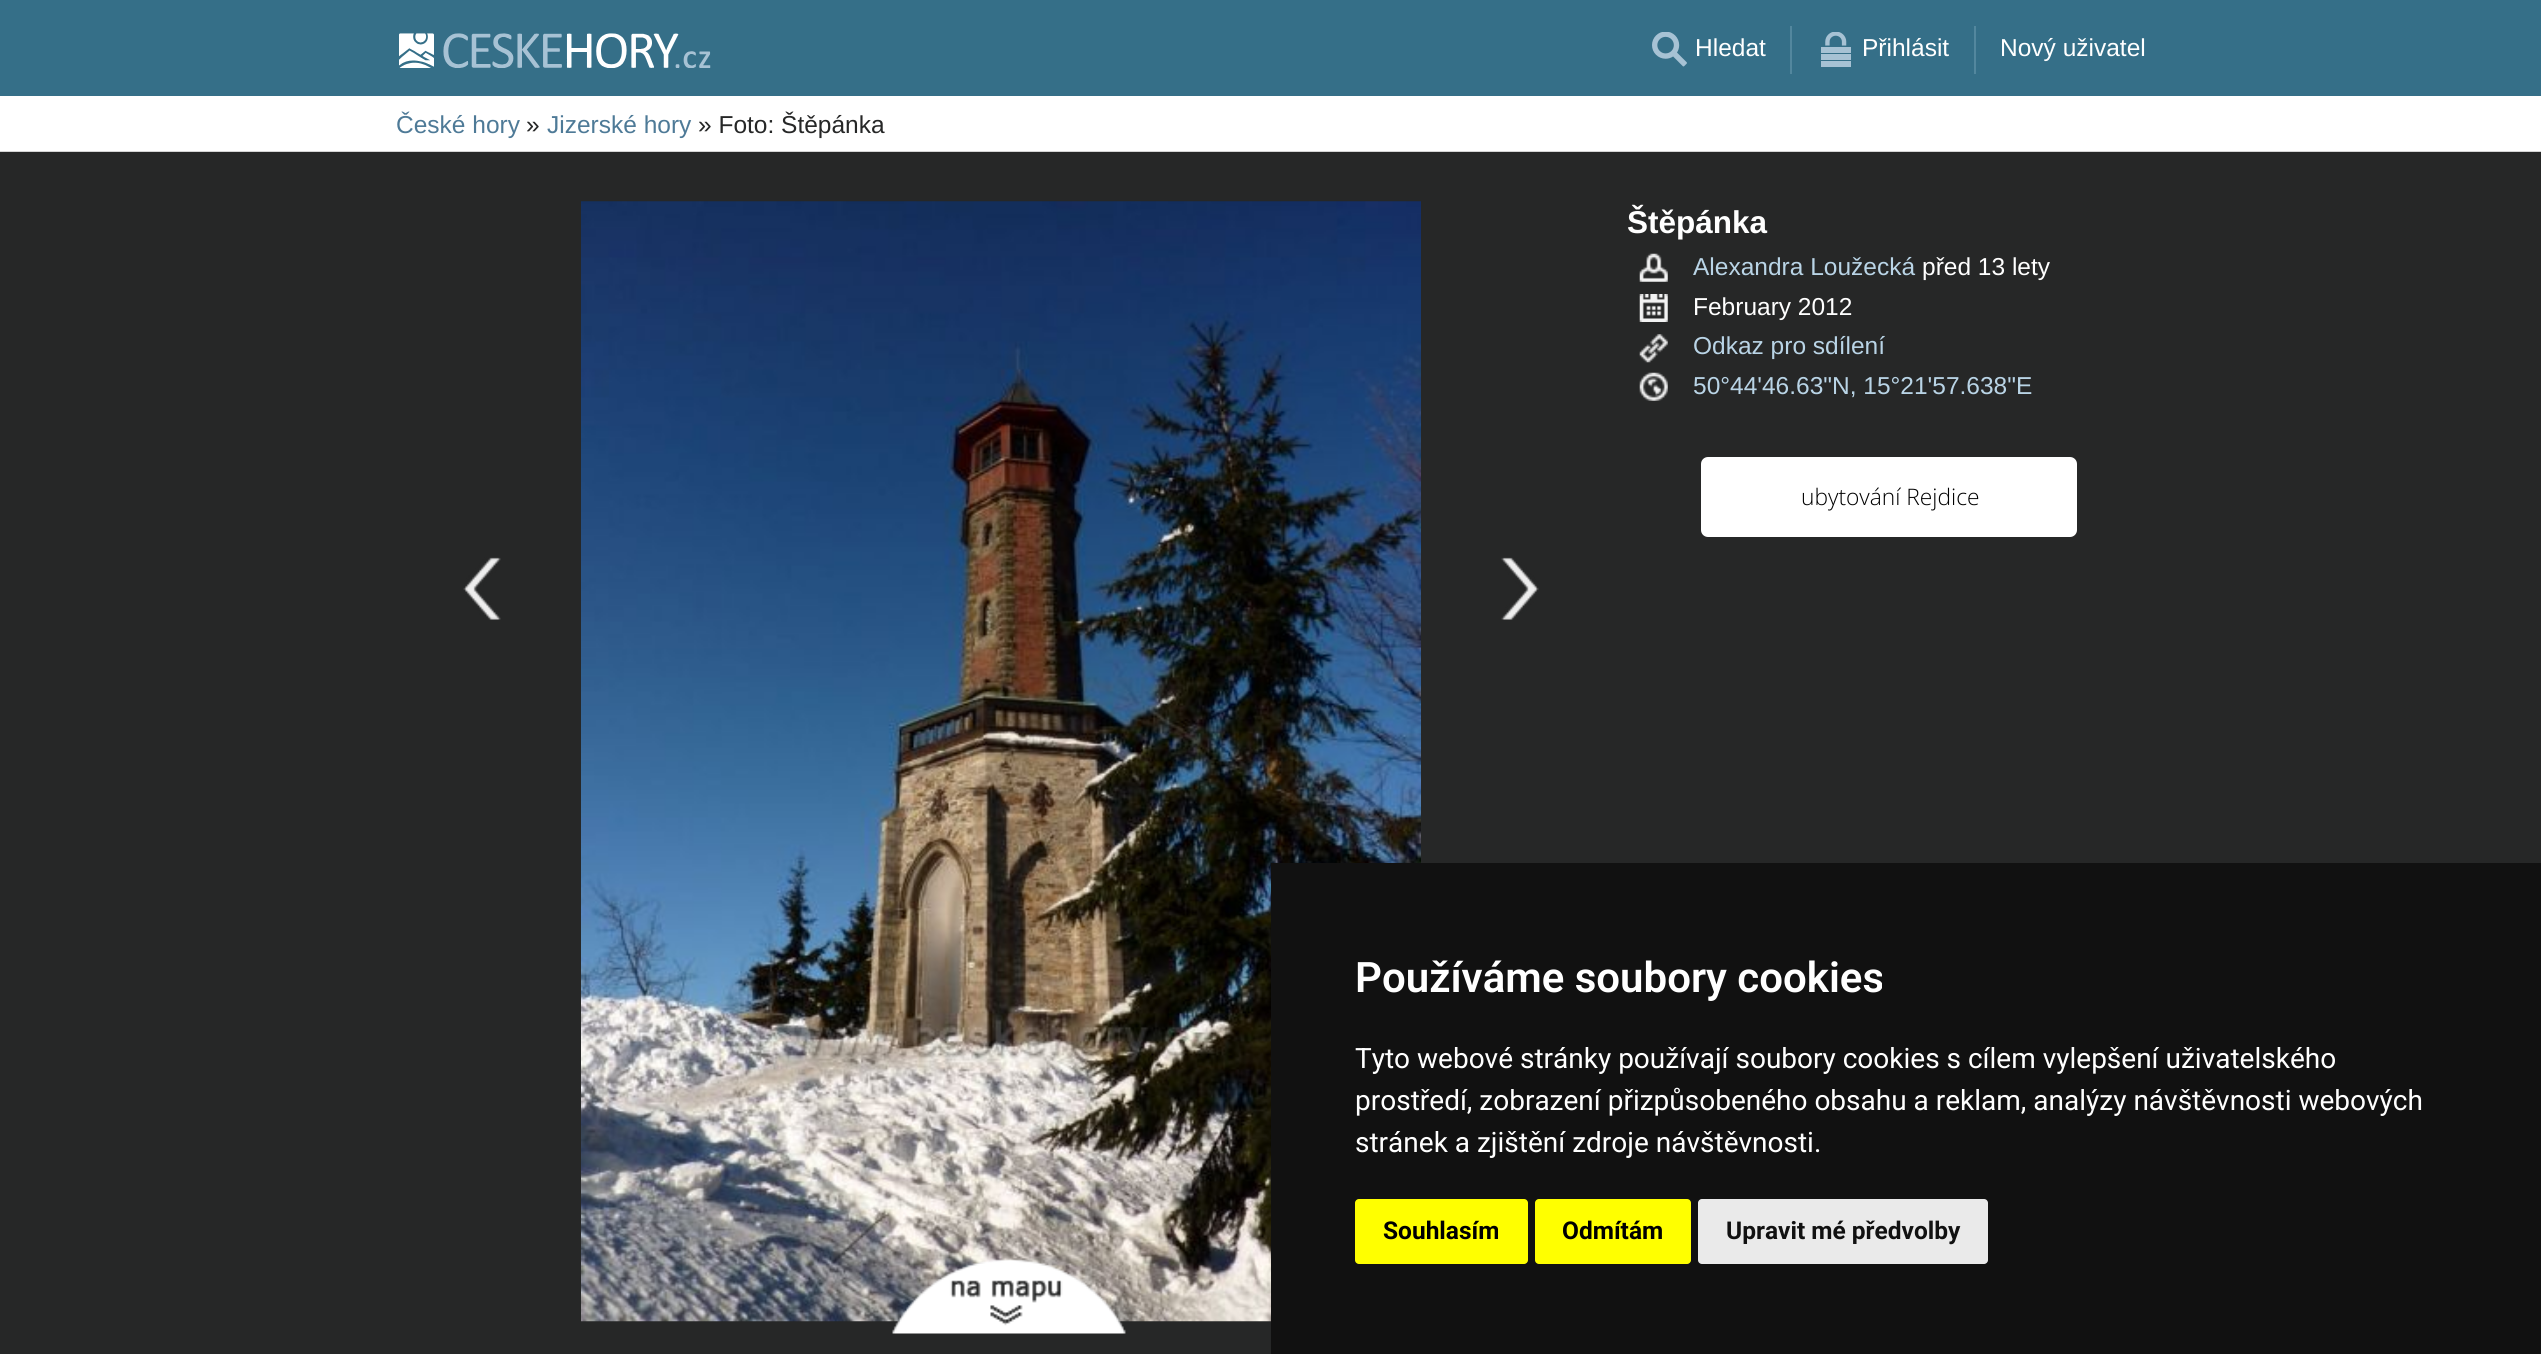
#include <cairo/cairo.h>
#include <math.h>
#include <stddef.h>

typedef struct { double x, y; const char *s; } line_t;
typedef struct { double x, y, w, h; unsigned color; } box_t;
static cairo_t *cr;

static void rgb(unsigned color)
{
	cairo_set_source_rgb(cr, (color >> 16) / 255.0, (color >> 8 & 255) / 255.0, (color & 255) / 255.0);
}

static void rrect(double x, double y, double w, double h, double r)
{
	cairo_new_sub_path(cr);
	cairo_arc(cr, x + w - r, y + h - r, r, 0, M_PI / 2);
	cairo_arc(cr, x + r, y + h - r, r, M_PI / 2, M_PI);
	cairo_arc(cr, x + r, y + r, r, M_PI, 1.5 * M_PI);
	cairo_arc(cr, x + w - r, y + r, r, 1.5 * M_PI, 2 * M_PI);
	cairo_close_path(cr);
}

static void image(const char *path, double x, double y, double w, double h)
{
	cairo_surface_t *image = cairo_image_surface_create_from_png(path);
	cairo_save(cr);
	cairo_set_source_surface(cr, image, x, y);
	cairo_rectangle(cr, x, y, w, h);
	cairo_fill(cr);
	cairo_restore(cr);
	cairo_surface_destroy(image);
}

int main(void) {
	cairo_surface_t *surface = cairo_image_surface_create(CAIRO_FORMAT_RGB24, 2541, 1354);
	cr = cairo_create(surface);
	cairo_font_options_t *options = cairo_font_options_create();
	cairo_font_options_set_hint_metrics(options, CAIRO_HINT_METRICS_OFF);
	cairo_font_options_set_hint_style(options, CAIRO_HINT_STYLE_NONE);
	cairo_set_font_options(cr, options);
	cairo_set_miter_limit(cr, 4);
	rgb(0x356f88);
	cairo_paint(cr);
	image("img/1.png", 399, 33, 312, 35);
	image("img/2.png", 1652, 32, 35, 35);
	rgb(0x53879e);
	cairo_rectangle(cr, 1790, 26, 2, 48);
	cairo_fill(cr);
	image("img/3.png", 1821, 32, 30, 35);
	{
		static const box_t items[] = {
			{1974, 26, 2, 48, 0x53879e},
			{0, 96, 2541, 55, 0xffffff},
			{0, 151, 2541, 1, 0xd4d4d4},
			{0, 152, 2541, 1202, 0x262727},
		};
		for (size_t i = 0; i < sizeof items / sizeof *items; i++) {
			rgb(items[i].color);
			cairo_rectangle(cr, items[i].x, items[i].y, items[i].w, items[i].h);
			cairo_fill(cr);
		}
	}
	image("img/4.png", 463, 557, 38, 63);
	image("img/5.png", 581, 201, 840, 1121);
	image("img/6.png", 1501, 557, 38, 63);
	image("img/7.png", 892, 1259, 234, 75);
	image("img/8.png", 1639, 253, 29, 29);
	image("img/9.png", 1639, 294, 29, 28);
	image("img/10.png", 1639, 334, 29, 29);
	image("img/11.png", 1639, 372, 29, 29);
	rgb(0xffffff);
	rrect(1701, 457, 376, 80, 7);
	cairo_fill(cr);
	rgb(0x111111);
	cairo_rectangle(cr, 1271, 863, 1270, 491);
	cairo_fill(cr);
	rgb(0xffff00);
	rrect(1355, 1199, 173, 65, 4);
	cairo_fill(cr);
	rrect(1535, 1199, 156, 65, 4);
	cairo_fill(cr);
	rgb(0xeaeaea);
	rrect(1698, 1199, 290, 65, 4);
	cairo_fill(cr);
	cairo_select_font_face(cr, "Liberation Sans", CAIRO_FONT_SLANT_NORMAL, CAIRO_FONT_WEIGHT_NORMAL);
	cairo_set_font_size(cr, 24.5);
	rgb(0xffffff);
	{
		static const line_t items[] = {
			{1695, 56, "Hledat"},
			{1862, 56, "Přihlásit"},
			{2000, 56, "Nový uživatel"},
		};
		for (size_t i = 0; i < sizeof items / sizeof *items; i++) {
			cairo_move_to(cr, items[i].x, items[i].y);
			cairo_show_text(cr, items[i].s);
		}
	}
	rgb(0x4e7a97);
	cairo_move_to(cr, 396, 133);
	cairo_show_text(cr, "České hory");
	rgb(0x262727);
	cairo_move_to(cr, 526, 133);
	cairo_show_text(cr, "»");
	rgb(0x4e7a97);
	cairo_move_to(cr, 547, 133);
	cairo_show_text(cr, "Jizerské hory");
	rgb(0x262727);
	cairo_move_to(cr, 698, 133);
	cairo_show_text(cr, "» Foto: Štěpánka");
	cairo_select_font_face(cr, "Liberation Sans", CAIRO_FONT_SLANT_NORMAL, CAIRO_FONT_WEIGHT_BOLD);
	cairo_set_font_size(cr, 31.5);
	rgb(0xffffff);
	cairo_move_to(cr, 1627, 233);
	cairo_show_text(cr, "Štěpánka");
	cairo_select_font_face(cr, "Liberation Sans", CAIRO_FONT_SLANT_NORMAL, CAIRO_FONT_WEIGHT_NORMAL);
	cairo_set_font_size(cr, 24.5);
	rgb(0xb9d4e6);
	cairo_move_to(cr, 1693, 275);
	cairo_show_text(cr, "Alexandra Loužecká");
	rgb(0xffffff);
	cairo_move_to(cr, 1922, 275);
	cairo_show_text(cr, "před 13 lety");
	cairo_move_to(cr, 1693, 315);
	cairo_show_text(cr, "February 2012");
	rgb(0xb9d4e6);
	cairo_move_to(cr, 1693, 354);
	cairo_show_text(cr, "Odkaz pro sdílení");
	cairo_move_to(cr, 1693, 394);
	cairo_show_text(cr, "50°44'46.63\"N, 15°21'57.638\"E");
	cairo_select_font_face(cr, "Open Sans Light", CAIRO_FONT_SLANT_NORMAL, CAIRO_FONT_WEIGHT_NORMAL);
	cairo_set_font_size(cr, 22.75);
	rgb(0x000000);
	cairo_move_to(cr, 1801, 505);
	cairo_show_text(cr, "ubytování Rejdice");
	cairo_select_font_face(cr, "Roboto SemiBold", CAIRO_FONT_SLANT_NORMAL, CAIRO_FONT_WEIGHT_NORMAL);
	cairo_set_font_size(cr, 42);
	rgb(0xffffff);
	cairo_move_to(cr, 1355, 992);
	cairo_show_text(cr, "Používáme soubory cookies");
	cairo_select_font_face(cr, "Roboto", CAIRO_FONT_SLANT_NORMAL, CAIRO_FONT_WEIGHT_NORMAL);
	cairo_set_font_size(cr, 28);
	{
		static const line_t items[] = {
			{1355, 1068, "Tyto webové stránky používají soubory cookies s cílem vylepšení uživatelského"},
			{1355, 1110, "prostředí, zobrazení přizpůsobeného obsahu a reklam, analýzy návštěvnosti webových"},
			{1355, 1152, "stránek a zjištění zdroje návštěvnosti."},
		};
		for (size_t i = 0; i < sizeof items / sizeof *items; i++) {
			cairo_move_to(cr, items[i].x, items[i].y);
			cairo_show_text(cr, items[i].s);
		}
	}
	cairo_select_font_face(cr, "Roboto", CAIRO_FONT_SLANT_NORMAL, CAIRO_FONT_WEIGHT_BOLD);
	cairo_set_font_size(cr, 24.5);
	rgb(0x000000);
	cairo_move_to(cr, 1383, 1239);
	cairo_show_text(cr, "Souhlasím");
	cairo_move_to(cr, 1562, 1239);
	cairo_show_text(cr, "Odmítám");
	rgb(0x111111);
	cairo_move_to(cr, 1726, 1239);
	cairo_show_text(cr, "Upravit mé předvolby");
	cairo_surface_write_to_png(surface, "page.png");
	cairo_font_options_destroy(options);
	cairo_destroy(cr);
	cairo_surface_destroy(surface);
	return 0;
}
